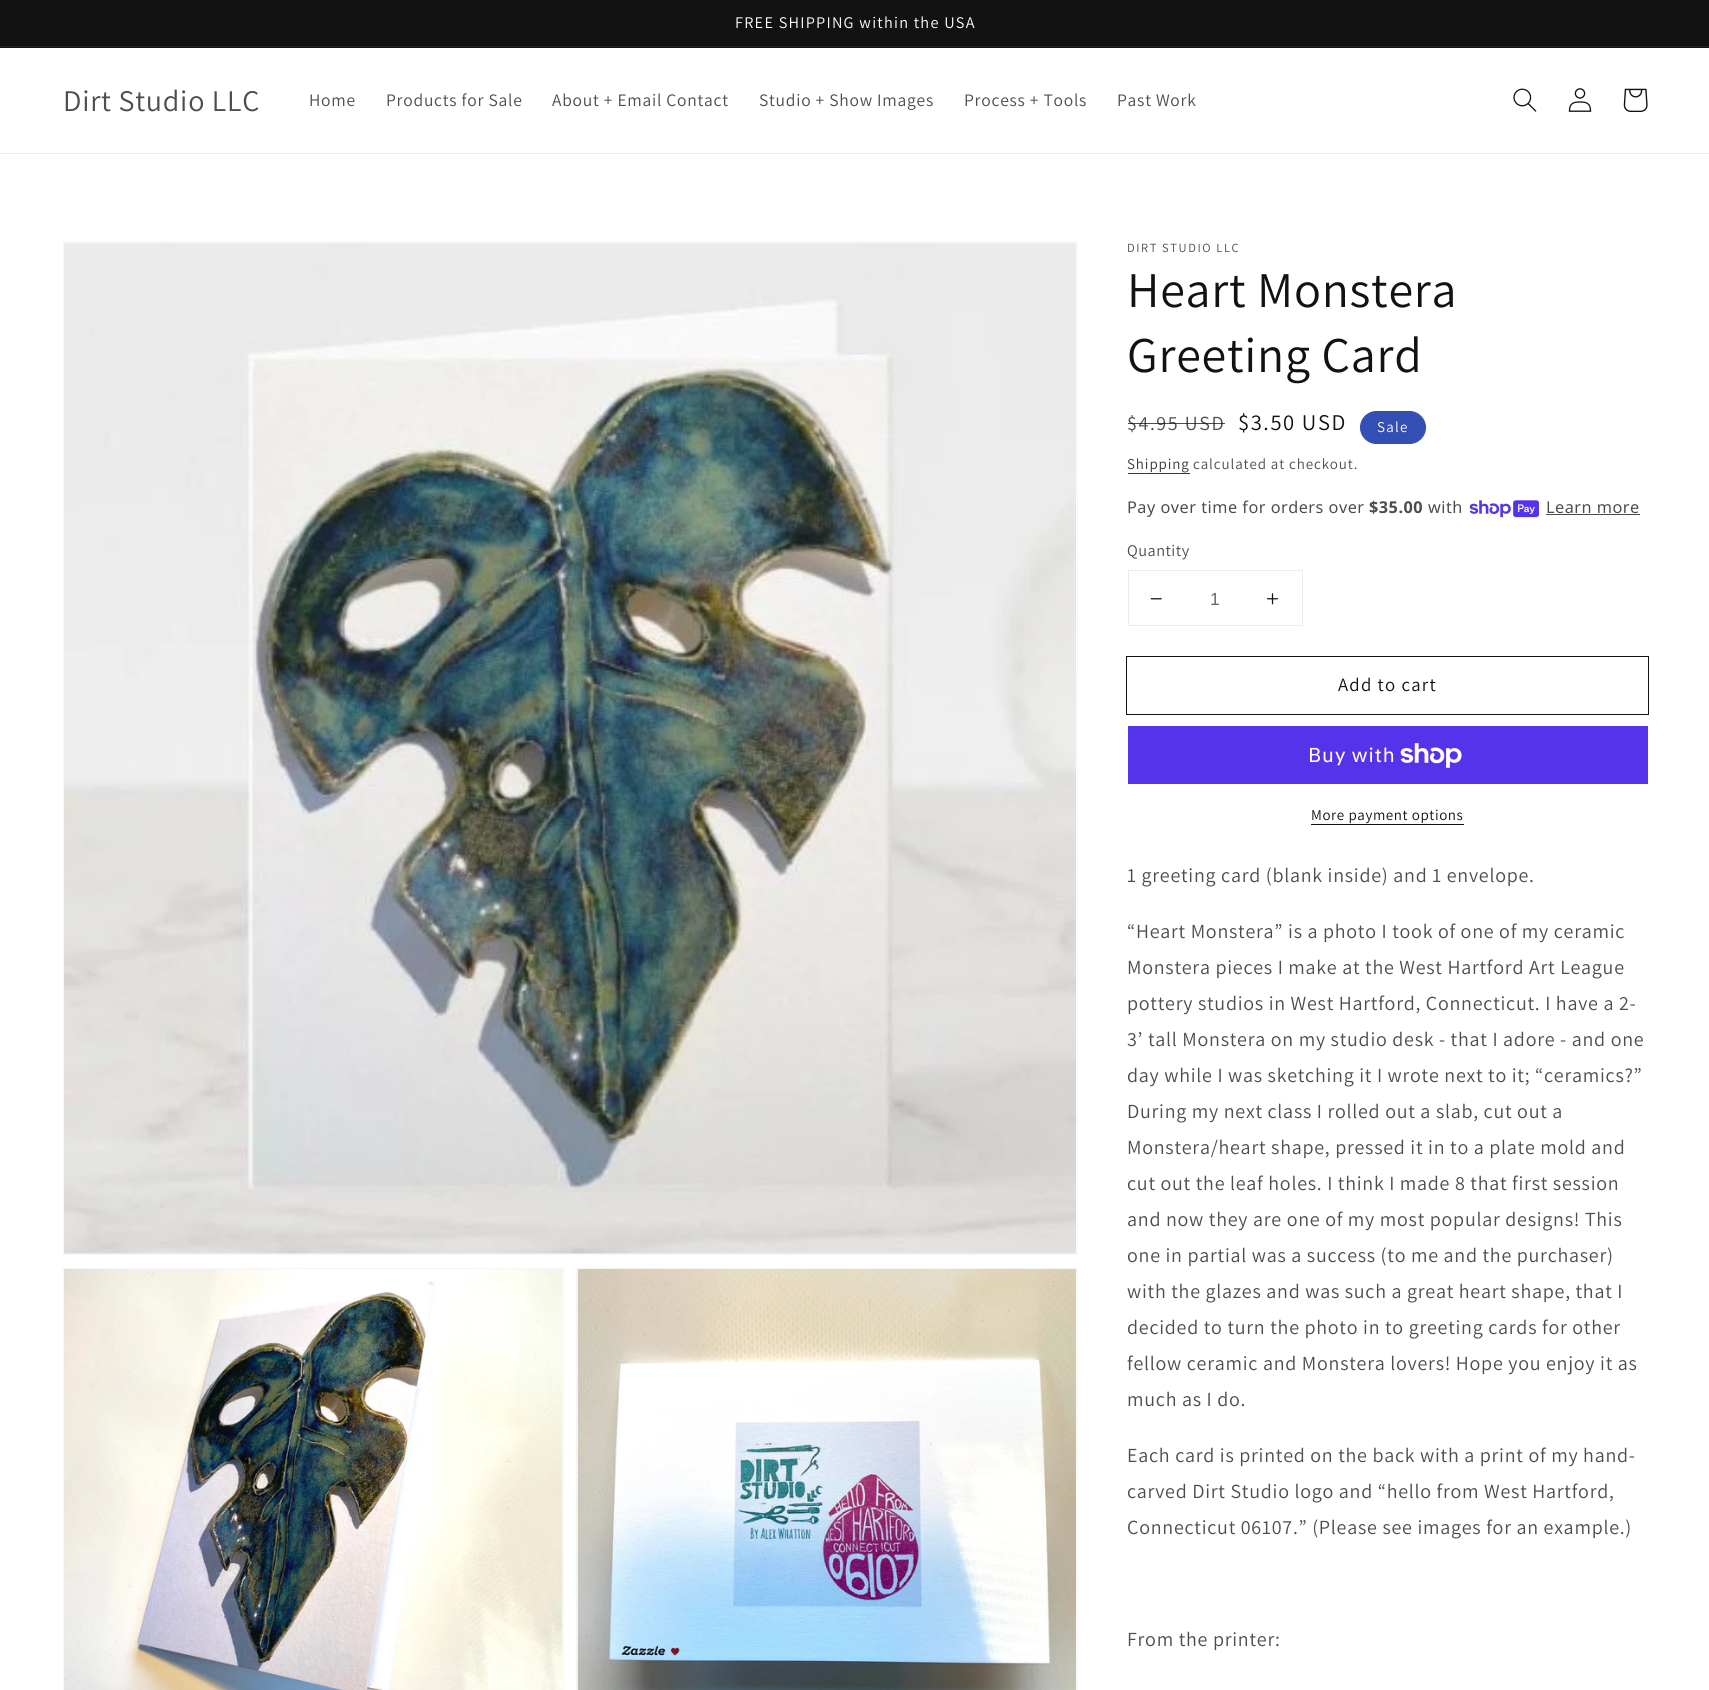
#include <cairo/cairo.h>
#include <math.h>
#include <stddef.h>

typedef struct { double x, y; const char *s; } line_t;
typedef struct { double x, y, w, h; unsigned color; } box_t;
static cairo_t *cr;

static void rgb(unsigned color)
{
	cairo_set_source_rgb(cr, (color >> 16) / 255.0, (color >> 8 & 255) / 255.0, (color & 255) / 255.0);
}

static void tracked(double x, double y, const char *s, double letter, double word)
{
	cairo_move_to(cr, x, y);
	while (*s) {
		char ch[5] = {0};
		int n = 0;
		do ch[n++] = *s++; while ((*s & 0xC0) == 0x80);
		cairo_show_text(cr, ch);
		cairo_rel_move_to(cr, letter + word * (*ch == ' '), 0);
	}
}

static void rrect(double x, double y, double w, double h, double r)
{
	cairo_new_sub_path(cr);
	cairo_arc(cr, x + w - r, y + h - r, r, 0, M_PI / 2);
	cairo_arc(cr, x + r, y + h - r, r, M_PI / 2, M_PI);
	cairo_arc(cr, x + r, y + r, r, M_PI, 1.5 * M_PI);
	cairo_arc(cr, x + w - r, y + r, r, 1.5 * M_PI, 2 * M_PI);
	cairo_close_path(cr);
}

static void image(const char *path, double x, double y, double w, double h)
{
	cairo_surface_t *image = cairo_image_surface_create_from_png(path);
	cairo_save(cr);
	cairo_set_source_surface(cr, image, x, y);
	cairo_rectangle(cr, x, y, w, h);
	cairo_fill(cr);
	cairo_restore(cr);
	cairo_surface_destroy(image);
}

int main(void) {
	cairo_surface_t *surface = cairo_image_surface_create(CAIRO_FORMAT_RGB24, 1709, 1690);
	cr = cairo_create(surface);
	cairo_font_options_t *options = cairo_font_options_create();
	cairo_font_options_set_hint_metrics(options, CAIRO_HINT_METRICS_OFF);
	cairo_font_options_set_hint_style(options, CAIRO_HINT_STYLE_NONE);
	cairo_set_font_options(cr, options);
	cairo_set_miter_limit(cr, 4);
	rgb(0xffffff);
	cairo_paint(cr);
	{
		static const box_t items[] = {
			{0, 0, 1709, 48, 0x121212},
			{0, 46, 1709, 1, 0x252525},
			{0, 153, 1709, 1, 0xececec},
		};
		for (size_t i = 0; i < sizeof items / sizeof *items; i++) {
			rgb(items[i].color);
			cairo_rectangle(cr, items[i].x, items[i].y, items[i].w, items[i].h);
			cairo_fill(cr);
		}
	}
	image("img/1.png", 1513, 88, 24, 24);
	image("img/2.png", 1568, 88, 24, 24);
	image("img/3.png", 1623, 88, 25, 24);
	cairo_rectangle(cr, 63.5, 241.5, 1014, 1013);
	rgb(0xf6f6f6);
	cairo_set_line_width(cr, 1);
	cairo_stroke(cr);
	image("img/4.png", 64, 242, 1012, 1012);
	cairo_rectangle(cr, 63.5, 1268.5, 500, 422);
	cairo_stroke(cr);
	image("img/5.png", 64, 1269, 499, 421);
	cairo_rectangle(cr, 576.5, 1268.5, 501, 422);
	cairo_stroke(cr);
	image("img/6.png", 577, 1268, 500, 422);
	rgb(0x334fb4);
	rrect(1360.5, 411.5, 65, 32, 16);
	cairo_fill_preserve(cr);
	cairo_stroke(cr);
	rgb(0x363636);
	cairo_rectangle(cr, 1128, 473, 62, 1);
	cairo_fill(cr);
	image("img/7.png", 1469, 500, 70, 18);
	rgb(0x4d4d4d);
	cairo_rectangle(cr, 1546, 514, 94, 1);
	cairo_fill(cr);
	cairo_rectangle(cr, 1128.5, 570.5, 174, 55);
	rgb(0xececec);
	cairo_stroke(cr);
	image("img/8.png", 1150, 598, 12, 2);
	image("img/9.png", 1266, 593, 13, 12);
	cairo_rectangle(cr, 1126.5, 656.5, 522, 58);
	rgb(0x121212);
	cairo_stroke(cr);
	rgb(0x5433eb);
	cairo_rectangle(cr, 1128, 726, 520, 58);
	cairo_fill(cr);
	image("img/10.png", 1400, 743, 62, 25);
	rgb(0x121212);
	cairo_rectangle(cr, 1311, 824, 153, 1);
	cairo_fill(cr);
	cairo_select_font_face(cr, "Assistant", CAIRO_FONT_SLANT_NORMAL, CAIRO_FONT_WEIGHT_NORMAL);
	cairo_set_font_size(cr, 16.25);
	rgb(0xffffff);
	tracked(735, 28, "FREE SHIPPING within the USA", 1.25, 0);
	cairo_set_font_size(cr, 30);
	rgb(0x4d4d4d);
	tracked(63, 111, "Dirt Studio LLC", 0.75, 0);
	cairo_set_font_size(cr, 17.5);
	{
		static const line_t items[] = {
			{309, 106, "Home"},
			{386, 106, "Products for Sale"},
			{552, 106, "About + Email Contact"},
			{759, 106, "Studio + Show Images"},
			{964, 106, "Process + Tools"},
			{1117, 106, "Past Work"},
		};
		for (size_t i = 0; i < sizeof items / sizeof *items; i++) {
			tracked(items[i].x, items[i].y, items[i].s, 0.75, 0);
		}
	}
	cairo_set_font_size(cr, 12.5);
	tracked(1127, 252, "DIRT STUDIO LLC", 1.6, 0);
	cairo_set_font_size(cr, 50);
	rgb(0x121212);
	tracked(1127, 307, "Heart Monstera", 0.75, 0);
	tracked(1127, 372, "Greeting Card", 0.75, 0);
	cairo_set_font_size(cr, 20);
	rgb(0x4d4d4d);
	tracked(1127, 430, "$4.95 USD", 1.6, 0);
	cairo_set_source_rgba(cr, 0.071, 0.071, 0.071, 0.75);
	cairo_rectangle(cr, 1128, 423, 97, 1);
	cairo_fill(cr);
	cairo_set_font_size(cr, 22.5);
	rgb(0x121212);
	tracked(1238, 430, "$3.50 USD", 1.6, 0);
	cairo_set_font_size(cr, 15);
	rgb(0xffffff);
	tracked(1377, 432, "Sale", 1.25, 0);
	rgb(0x363636);
	tracked(1127, 469, "Shipping", 0.9, 0);
	rgb(0x4d4d4d);
	tracked(1193, 469, "calculated at checkout.", 0.9, 0);
	cairo_select_font_face(cr, "Noto Sans", CAIRO_FONT_SLANT_NORMAL, CAIRO_FONT_WEIGHT_NORMAL);
	cairo_set_font_size(cr, 16.25);
	tracked(1127, 513, "Pay over time for orders over", 0.5, 0);
	cairo_select_font_face(cr, "Noto Sans", CAIRO_FONT_SLANT_NORMAL, CAIRO_FONT_WEIGHT_BOLD);
	tracked(1369, 513, "$35.00", 0.5, 0);
	cairo_select_font_face(cr, "Noto Sans", CAIRO_FONT_SLANT_NORMAL, CAIRO_FONT_WEIGHT_NORMAL);
	tracked(1428, 513, "with", 0.5, 0);
	tracked(1546, 513, "Learn more", 0.5, 0);
	cairo_select_font_face(cr, "Assistant", CAIRO_FONT_SLANT_NORMAL, CAIRO_FONT_WEIGHT_NORMAL);
	tracked(1127, 556, "Quantity", 0.5, 0);
	cairo_select_font_face(cr, "Liberation Sans", CAIRO_FONT_SLANT_NORMAL, CAIRO_FONT_WEIGHT_NORMAL);
	cairo_set_font_size(cr, 17.5);
	rgb(0x686868);
	cairo_move_to(cr, 1210, 605);
	cairo_show_text(cr, "1");
	cairo_select_font_face(cr, "Assistant", CAIRO_FONT_SLANT_NORMAL, CAIRO_FONT_WEIGHT_NORMAL);
	cairo_set_font_size(cr, 18.75);
	rgb(0x121212);
	tracked(1338, 691, "Add to cart", 1.25, 0);
	cairo_select_font_face(cr, "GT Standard", CAIRO_FONT_SLANT_NORMAL, CAIRO_FONT_WEIGHT_NORMAL);
	cairo_set_font_size(cr, 20);
	rgb(0xffffff);
	tracked(1308, 762, "Buy with", 0.75, 0);
	cairo_select_font_face(cr, "Assistant", CAIRO_FONT_SLANT_NORMAL, CAIRO_FONT_WEIGHT_NORMAL);
	cairo_set_font_size(cr, 15);
	rgb(0x121212);
	tracked(1311, 820, "More payment options", 0.6, 0);
	cairo_set_font_size(cr, 20);
	rgb(0x4d4d4d);
	{
		static const line_t items[] = {
			{1127, 882, "1 greeting card (blank inside) and 1 envelope."},
			{1127, 938, "“Heart Monstera” is a photo I took of one of my ceramic"},
			{1127, 974, "Monstera pieces I make at the West Hartford Art League"},
			{1127, 1010, "pottery studios in West Hartford, Connecticut. I have a 2-"},
			{1127, 1046, "3’ tall Monstera on my studio desk - that I adore - and one"},
			{1127, 1082, "day while I was sketching it I wrote next to it; “ceramics?”"},
			{1127, 1118, "During my next class I rolled out a slab, cut out a"},
			{1127, 1154, "Monstera/heart shape, pressed it in to a plate mold and"},
			{1127, 1190, "cut out the leaf holes. I think I made 8 that first session"},
			{1127, 1226, "and now they are one of my most popular designs! This"},
			{1127, 1262, "one in partial was a success (to me and the purchaser)"},
			{1127, 1298, "with the glazes and was such a great heart shape, that I"},
			{1127, 1334, "decided to turn the photo in to greeting cards for other"},
			{1127, 1370, "fellow ceramic and Monstera lovers! Hope you enjoy it as"},
			{1127, 1406, "much as I do."},
			{1127, 1462, "Each card is printed on the back with a print of my hand-"},
			{1127, 1498, "carved Dirt Studio logo and “hello from West Hartford,"},
			{1127, 1534, "Connecticut 06107.” (Please see images for an example.)"},
			{1127, 1646, "From the printer:"},
		};
		for (size_t i = 0; i < sizeof items / sizeof *items; i++) {
			tracked(items[i].x, items[i].y, items[i].s, 0.75, 0);
		}
	}
	cairo_surface_write_to_png(surface, "page.png");
	cairo_font_options_destroy(options);
	cairo_destroy(cr);
	cairo_surface_destroy(surface);
	return 0;
}
